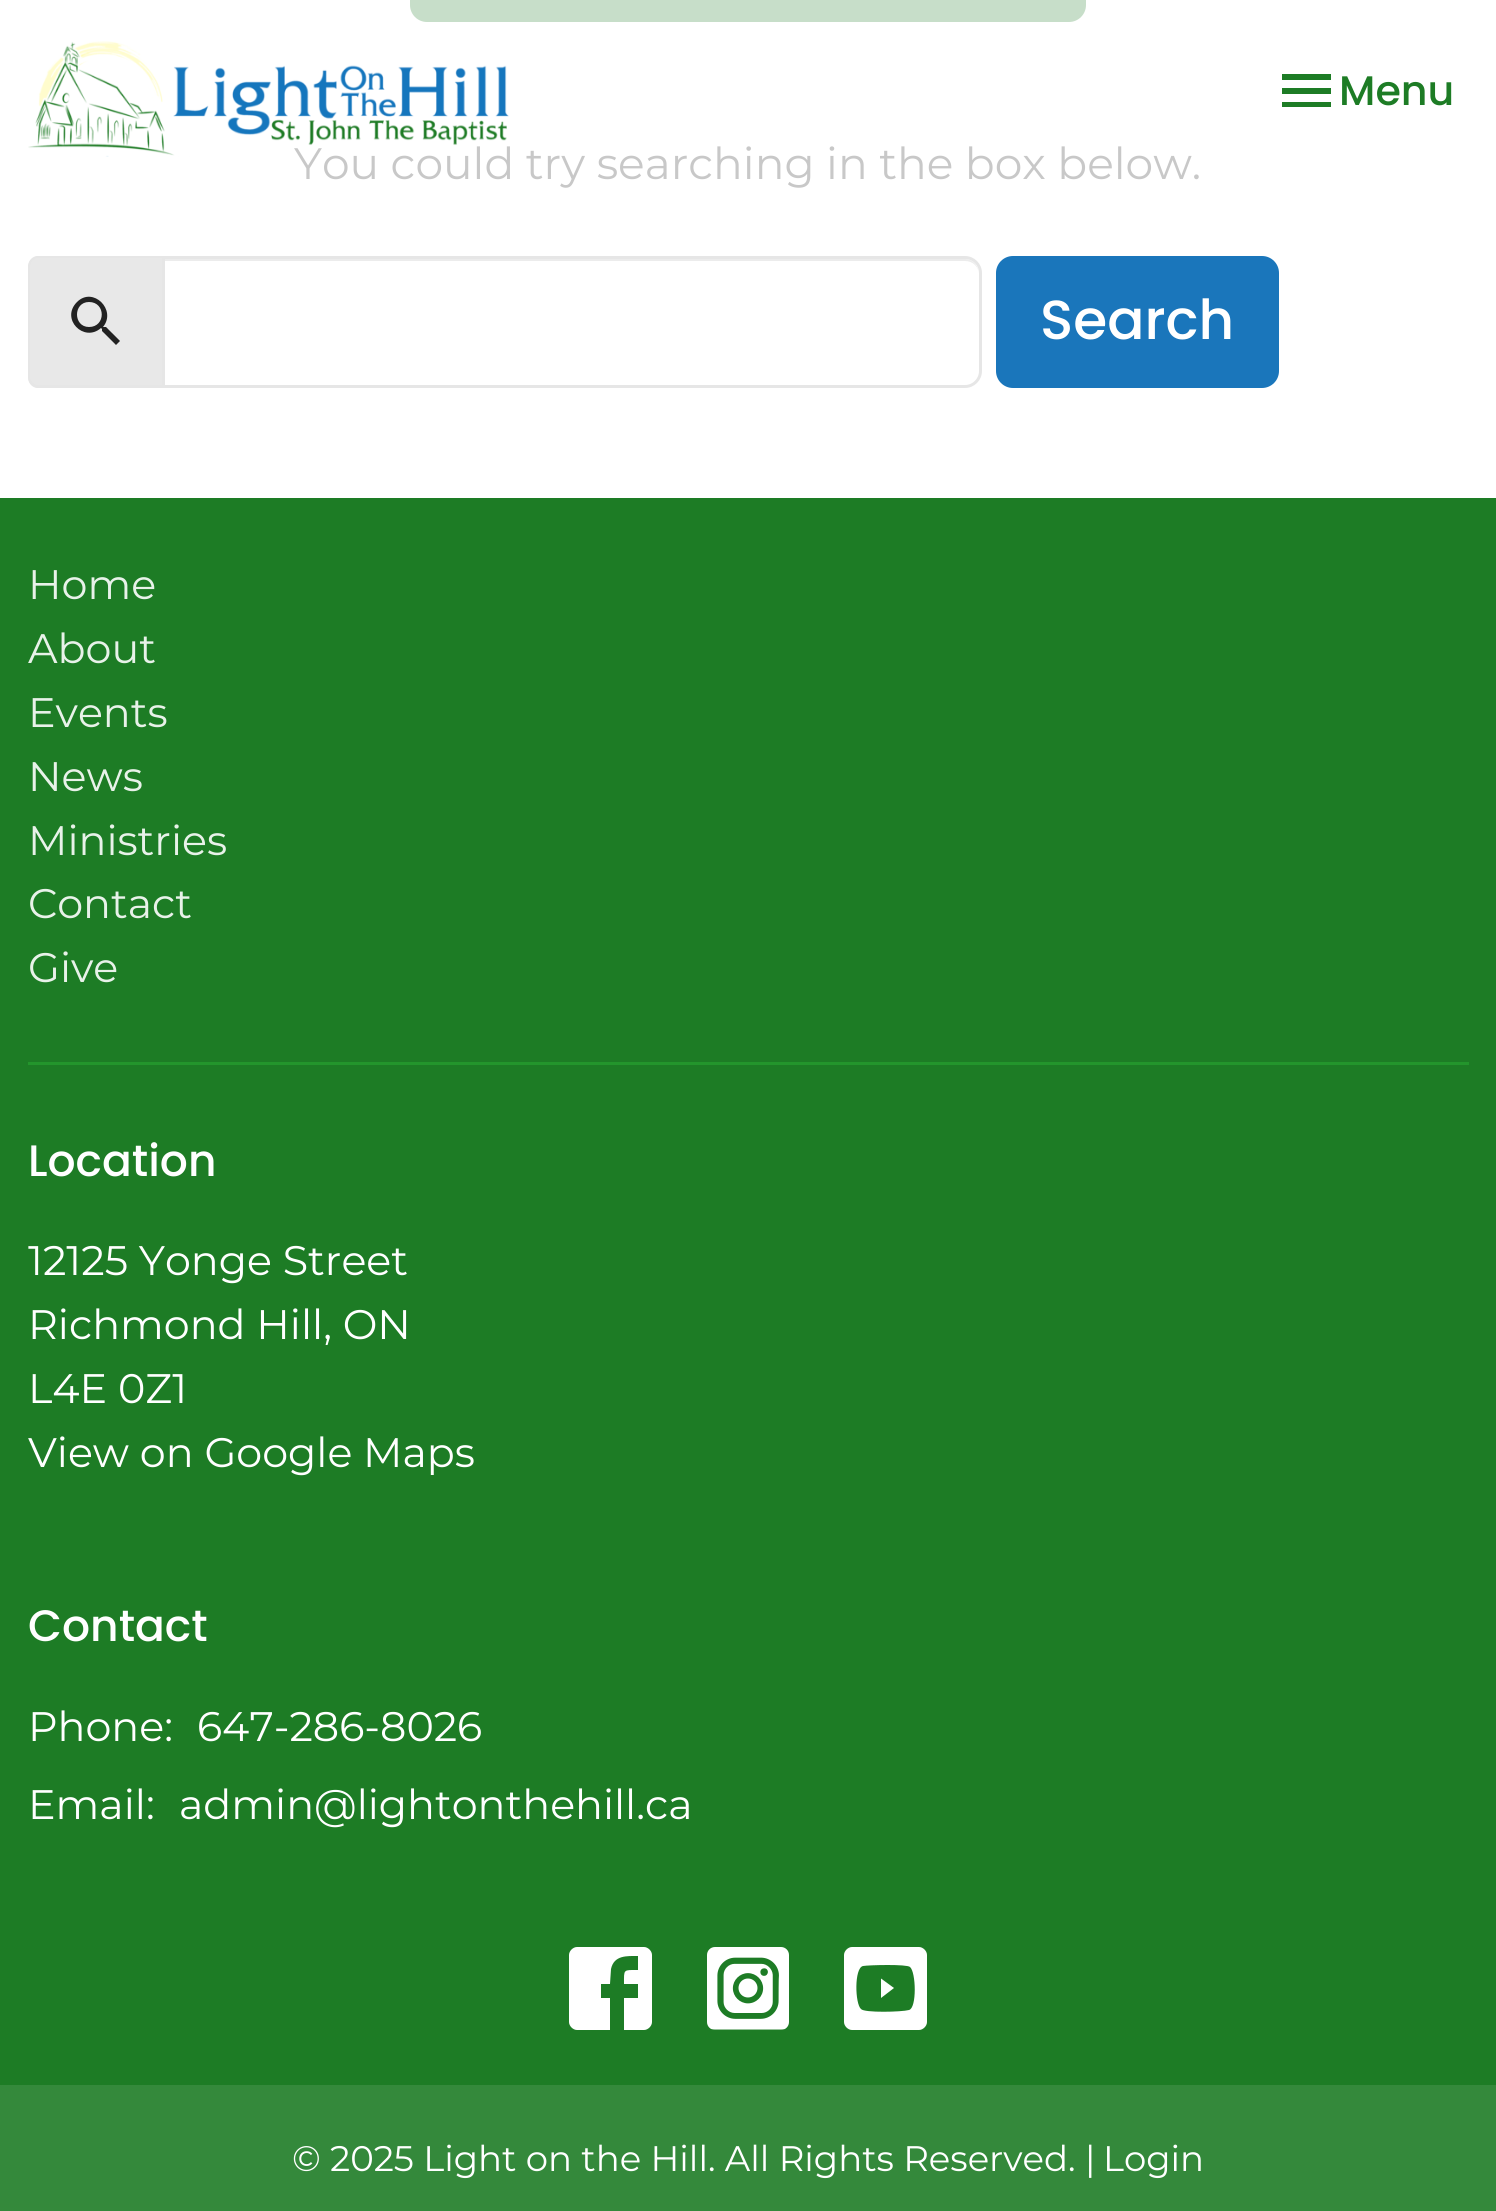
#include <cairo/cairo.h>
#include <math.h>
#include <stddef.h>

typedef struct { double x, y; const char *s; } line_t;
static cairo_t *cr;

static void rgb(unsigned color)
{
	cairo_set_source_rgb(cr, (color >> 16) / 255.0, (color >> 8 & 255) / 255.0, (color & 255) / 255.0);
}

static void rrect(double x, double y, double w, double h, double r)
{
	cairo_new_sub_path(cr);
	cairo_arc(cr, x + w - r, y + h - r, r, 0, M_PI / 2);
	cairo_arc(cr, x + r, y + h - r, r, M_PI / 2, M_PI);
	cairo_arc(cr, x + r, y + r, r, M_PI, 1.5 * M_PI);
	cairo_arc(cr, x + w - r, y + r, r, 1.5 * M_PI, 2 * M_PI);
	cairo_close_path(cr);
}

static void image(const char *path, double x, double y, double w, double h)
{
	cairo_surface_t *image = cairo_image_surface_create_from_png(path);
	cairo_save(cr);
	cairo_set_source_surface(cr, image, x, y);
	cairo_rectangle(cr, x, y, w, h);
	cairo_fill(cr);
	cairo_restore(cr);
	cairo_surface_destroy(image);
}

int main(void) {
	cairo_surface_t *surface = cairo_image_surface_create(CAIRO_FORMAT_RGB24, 1496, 2211);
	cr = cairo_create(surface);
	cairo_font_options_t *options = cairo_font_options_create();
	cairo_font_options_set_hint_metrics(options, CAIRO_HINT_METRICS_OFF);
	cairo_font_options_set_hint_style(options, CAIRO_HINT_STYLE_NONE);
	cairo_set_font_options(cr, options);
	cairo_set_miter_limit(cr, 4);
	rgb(0xffffff);
	cairo_paint(cr);
	rgb(0x1d7c25);
	cairo_new_path(cr);
	cairo_move_to(cr, 1282, 107);
	cairo_line_to(cr, 1331, 107);
	cairo_line_to(cr, 1331, 102);
	cairo_line_to(cr, 1282, 102);
	cairo_close_path(cr);
	cairo_move_to(cr, 1282, 94);
	cairo_line_to(cr, 1331, 94);
	cairo_line_to(cr, 1331, 88);
	cairo_line_to(cr, 1282, 88);
	cairo_close_path(cr);
	cairo_move_to(cr, 1282, 74);
	cairo_line_to(cr, 1282, 80);
	cairo_line_to(cr, 1331, 80);
	cairo_line_to(cr, 1331, 74);
	cairo_close_path(cr);
	cairo_fill(cr);
	rgb(0xc7dec9);
	rrect(410, -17, 676, 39, 17);
	cairo_fill(cr);
	rgb(0xe8e8e8);
	cairo_new_path(cr);
	cairo_move_to(cr, 39, 256);
	cairo_line_to(cr, 162, 256);
	cairo_line_to(cr, 162, 388);
	cairo_line_to(cr, 39, 388);
	cairo_curve_to(cr, 33, 388, 28, 383, 28, 377);
	cairo_line_to(cr, 28, 267);
	cairo_curve_to(cr, 28, 261, 33, 256, 39, 256);
	cairo_close_path(cr);
	cairo_fill(cr);
	rgb(0xe6e6e6);
	cairo_set_fill_rule(cr, CAIRO_FILL_RULE_EVEN_ODD);
	cairo_new_path(cr);
	cairo_move_to(cr, 38, 256);
	cairo_line_to(cr, 162, 256);
	cairo_line_to(cr, 162, 388);
	cairo_line_to(cr, 38, 388);
	cairo_curve_to(cr, 32, 388, 28, 383, 28, 377);
	cairo_line_to(cr, 28, 267);
	cairo_curve_to(cr, 28, 261, 32, 256, 38, 256);
	cairo_close_path(cr);
	cairo_move_to(cr, 38, 258);
	cairo_line_to(cr, 162, 258);
	cairo_line_to(cr, 162, 385);
	cairo_line_to(cr, 38, 385);
	cairo_curve_to(cr, 34, 385, 30, 381, 30, 377);
	cairo_line_to(cr, 30, 267);
	cairo_curve_to(cr, 30, 262, 34, 258, 38, 258);
	cairo_close_path(cr);
	cairo_fill(cr);
	rgb(0x222222);
	cairo_set_fill_rule(cr, CAIRO_FILL_RULE_WINDING);
	cairo_new_path(cr);
	cairo_move_to(cr, 106, 327);
	cairo_line_to(cr, 104, 327);
	cairo_line_to(cr, 103, 327);
	cairo_curve_to(cr, 117, 310, 93, 286, 77, 302);
	cairo_curve_to(cr, 60, 319, 84, 343, 101, 328);
	cairo_line_to(cr, 102, 329);
	cairo_line_to(cr, 102, 331);
	cairo_line_to(cr, 116, 345);
	cairo_line_to(cr, 120, 341);
	cairo_close_path(cr);
	cairo_move_to(cr, 89, 327);
	cairo_curve_to(cr, 73, 327, 73, 302, 89, 302);
	cairo_curve_to(cr, 106, 302, 106, 327, 89, 327);
	cairo_close_path(cr);
	cairo_fill(cr);
	rgb(0xececec);
	cairo_new_path(cr);
	cairo_move_to(cr, 165, 261);
	cairo_line_to(cr, 965, 261);
	cairo_curve_to(cr, 973, 261, 979, 267, 979, 275);
	cairo_curve_to(cr, 979, 267, 974, 259, 965, 259);
	cairo_line_to(cr, 165, 259);
	cairo_close_path(cr);
	cairo_fill(cr);
	cairo_new_path(cr);
	cairo_move_to(cr, 163.5, 257.5);
	cairo_line_to(cr, 965, 257.5);
	cairo_curve_to(cr, 973.5, 257.5, 980.5, 264.5, 980.5, 273);
	cairo_line_to(cr, 980.5, 371);
	cairo_curve_to(cr, 980.5, 379.5, 973.5, 386.5, 965, 386.5);
	cairo_line_to(cr, 163.5, 386.5);
	cairo_close_path(cr);
	rgb(0xe6e6e6);
	cairo_set_line_width(cr, 3);
	cairo_stroke(cr);
	rgb(0x1a76bb);
	rrect(996, 256, 283, 132, 17);
	cairo_fill(cr);
	rgb(0x1d7c25);
	cairo_rectangle(cr, 0, 498, 1496, 1587);
	cairo_fill(cr);
	rgb(0x23952c);
	cairo_rectangle(cr, 28, 1062, 1441, 3);
	cairo_fill(cr);
	rgb(0xffffff);
	cairo_new_path(cr);
	cairo_move_to(cr, 638, 1956);
	cairo_line_to(cr, 638, 1970);
	cairo_curve_to(cr, 623, 1970, 624, 1969, 624, 1984);
	cairo_line_to(cr, 638, 1984);
	cairo_line_to(cr, 638, 1998);
	cairo_line_to(cr, 624, 1998);
	cairo_line_to(cr, 624, 2030);
	cairo_line_to(cr, 644, 2030);
	cairo_curve_to(cr, 648, 2030, 652, 2026, 652, 2022);
	cairo_line_to(cr, 652, 1955);
	cairo_curve_to(cr, 652, 1951, 648, 1947, 644, 1947);
	cairo_line_to(cr, 577, 1947);
	cairo_curve_to(cr, 573, 1947, 569, 1951, 569, 1955);
	cairo_line_to(cr, 569, 2022);
	cairo_curve_to(cr, 569, 2026, 573, 2030, 577, 2030);
	cairo_line_to(cr, 610, 2030);
	cairo_line_to(cr, 610, 1998);
	cairo_line_to(cr, 601, 1998);
	cairo_line_to(cr, 601, 1984);
	cairo_line_to(cr, 610, 1984);
	cairo_line_to(cr, 611, 1969);
	cairo_curve_to(cr, 614, 1955, 627, 1956, 638, 1956);
	cairo_close_path(cr);
	cairo_fill(cr);
	image("img/2.png", 707, 1947, 82, 83);
	cairo_new_path(cr);
	cairo_move_to(cr, 881, 1978.5);
	cairo_line_to(cr, 894, 1988);
	cairo_line_to(cr, 881, 1998);
	cairo_close_path(cr);
	cairo_fill(cr);
	cairo_set_fill_rule(cr, CAIRO_FILL_RULE_EVEN_ODD);
	cairo_new_path(cr);
	cairo_move_to(cr, 852, 1947);
	cairo_curve_to(cr, 848, 1947, 844, 1951, 844, 1955);
	cairo_line_to(cr, 844, 2022);
	cairo_curve_to(cr, 844, 2026, 848, 2030, 852, 2030);
	cairo_line_to(cr, 919, 2030);
	cairo_curve_to(cr, 923, 2030, 927, 2026, 927, 2022);
	cairo_line_to(cr, 927, 1955);
	cairo_curve_to(cr, 927, 1951, 923, 1947, 919, 1947);
	cairo_close_path(cr);
	cairo_move_to(cr, 909, 2010);
	cairo_curve_to(cr, 917, 2008, 916, 1972, 910, 1967);
	cairo_curve_to(cr, 907, 1964, 869, 1965, 863, 1966);
	cairo_curve_to(cr, 854, 1968, 855, 2004, 861, 2009);
	cairo_curve_to(cr, 864, 2013, 902, 2012, 909, 2010);
	cairo_close_path(cr);
	cairo_fill(cr);
	rgb(0x34893b);
	cairo_rectangle(cr, 0, 2085, 1496, 126);
	cairo_fill(cr);
	cairo_select_font_face(cr, "Poppins Medium", CAIRO_FONT_SLANT_NORMAL, CAIRO_FONT_WEIGHT_NORMAL);
	cairo_set_font_size(cr, 41.25);
	rgb(0x1d7c25);
	cairo_move_to(cr, 1339, 105);
	cairo_show_text(cr, "Menu");
	cairo_select_font_face(cr, "Montserrat", CAIRO_FONT_SLANT_NORMAL, CAIRO_FONT_WEIGHT_NORMAL);
	cairo_set_font_size(cr, 44);
	rgb(0xc8c8c8);
	cairo_move_to(cr, 294, 179);
	cairo_show_text(cr, "You could try searching in the box below.");
	image("img/1.png", 28, 41, 481, 116);
	cairo_select_font_face(cr, "Poppins Medium", CAIRO_FONT_SLANT_NORMAL, CAIRO_FONT_WEIGHT_NORMAL);
	cairo_set_font_size(cr, 55);
	rgb(0xffffff);
	cairo_move_to(cr, 1040, 339);
	cairo_show_text(cr, "Search");
	cairo_select_font_face(cr, "Montserrat", CAIRO_FONT_SLANT_NORMAL, CAIRO_FONT_WEIGHT_NORMAL);
	cairo_set_font_size(cr, 41.25);
	rgb(0xe8f2e9);
	{
		static const line_t items[] = {
			{28, 599, "Home"},
			{28, 663, "About"},
			{28, 727, "Events"},
			{28, 791, "News"},
			{28, 855, "Ministries"},
			{28, 918, "Contact"},
			{28, 982, "Give"},
		};
		for (size_t i = 0; i < sizeof items / sizeof *items; i++) {
			cairo_move_to(cr, items[i].x, items[i].y);
			cairo_show_text(cr, items[i].s);
		}
	}
	cairo_select_font_face(cr, "Poppins Medium", CAIRO_FONT_SLANT_NORMAL, CAIRO_FONT_WEIGHT_NORMAL);
	cairo_set_font_size(cr, 44);
	rgb(0xffffff);
	cairo_move_to(cr, 28, 1176);
	cairo_show_text(cr, "Location");
	cairo_select_font_face(cr, "Montserrat", CAIRO_FONT_SLANT_NORMAL, CAIRO_FONT_WEIGHT_NORMAL);
	cairo_set_font_size(cr, 41.25);
	{
		static const line_t items[] = {
			{28, 1275, "12125 Yonge Street"},
			{28, 1339, "Richmond Hill, ON"},
			{28, 1403, "L4E 0Z1"},
			{28, 1467, "View on Google Maps"},
		};
		for (size_t i = 0; i < sizeof items / sizeof *items; i++) {
			cairo_move_to(cr, items[i].x, items[i].y);
			cairo_show_text(cr, items[i].s);
		}
	}
	cairo_select_font_face(cr, "Poppins Medium", CAIRO_FONT_SLANT_NORMAL, CAIRO_FONT_WEIGHT_NORMAL);
	cairo_set_font_size(cr, 44);
	cairo_move_to(cr, 28, 1641);
	cairo_show_text(cr, "Contact");
	cairo_select_font_face(cr, "Montserrat", CAIRO_FONT_SLANT_NORMAL, CAIRO_FONT_WEIGHT_NORMAL);
	cairo_set_font_size(cr, 41.25);
	{
		static const line_t items[] = {
			{28, 1741, "Phone:"},
			{197, 1741, "647-286-8026"},
			{28, 1819, "Email:"},
			{179, 1819, "admin@lightonthehill.ca"},
		};
		for (size_t i = 0; i < sizeof items / sizeof *items; i++) {
			cairo_move_to(cr, items[i].x, items[i].y);
			cairo_show_text(cr, items[i].s);
		}
	}
	cairo_set_font_size(cr, 35.5);
	cairo_move_to(cr, 292, 2171);
	cairo_show_text(cr, "© 2025 Light on the Hill. All Rights Reserved. |");
	cairo_move_to(cr, 1103, 2171);
	cairo_show_text(cr, "Login");
	cairo_surface_write_to_png(surface, "page.png");
	cairo_font_options_destroy(options);
	cairo_destroy(cr);
	cairo_surface_destroy(surface);
	return 0;
}
